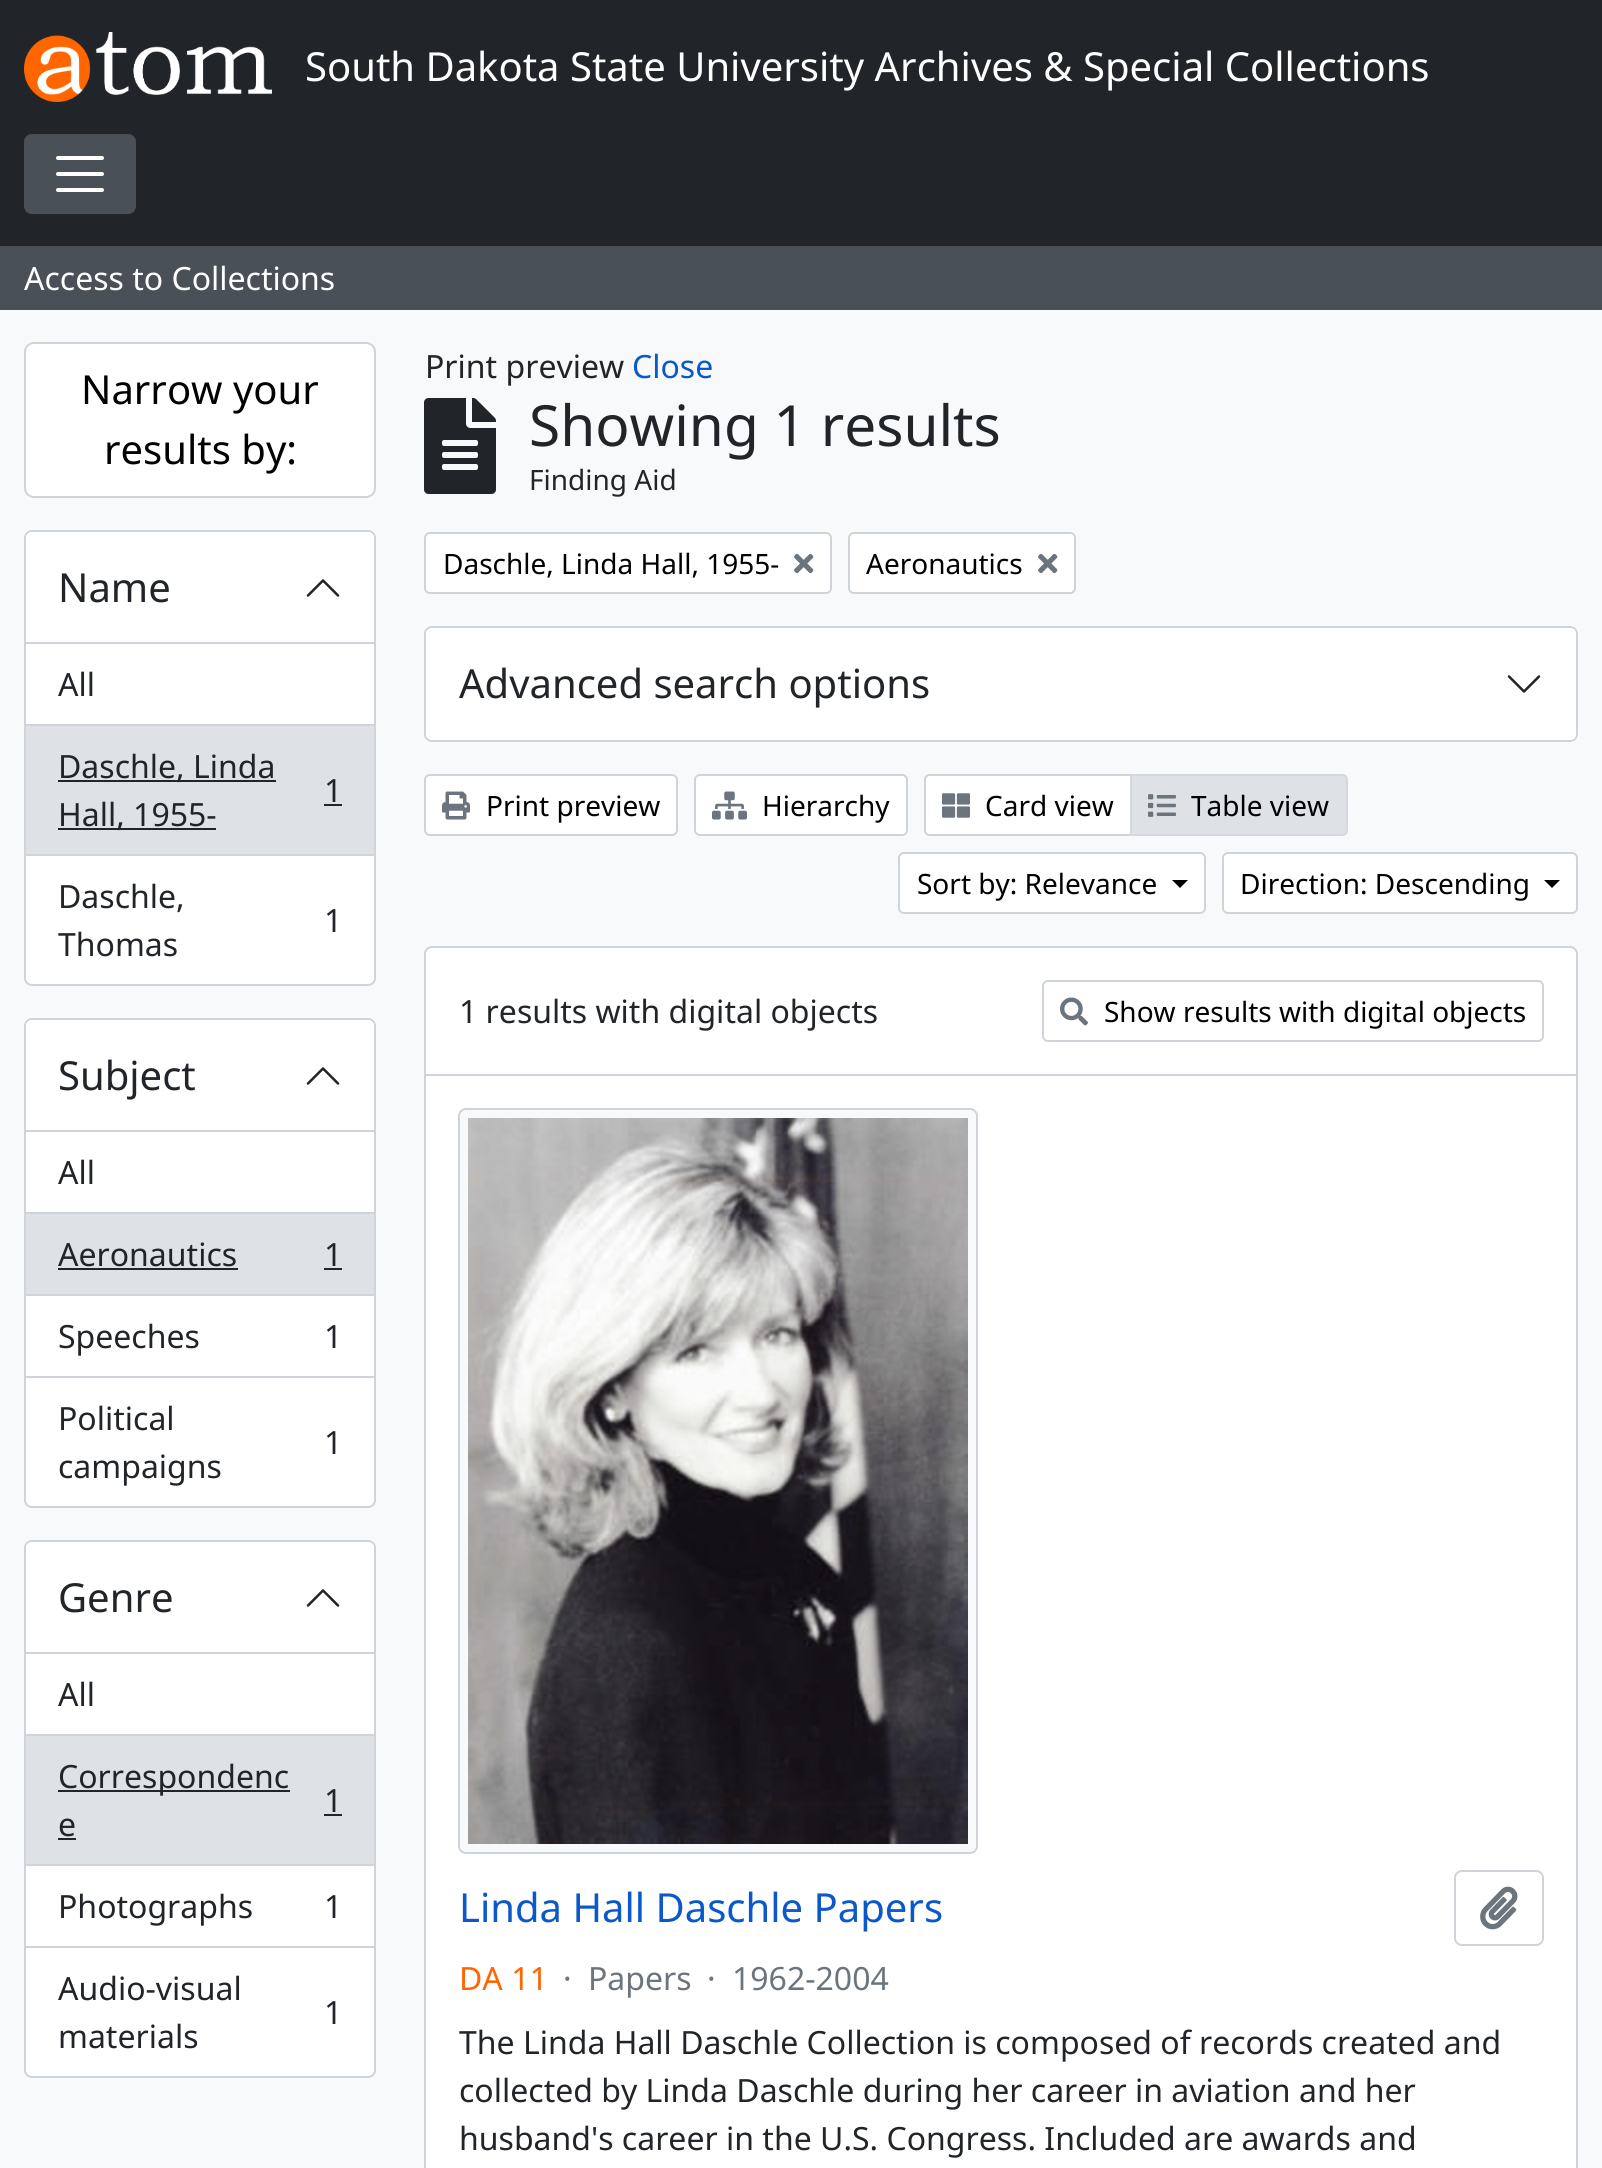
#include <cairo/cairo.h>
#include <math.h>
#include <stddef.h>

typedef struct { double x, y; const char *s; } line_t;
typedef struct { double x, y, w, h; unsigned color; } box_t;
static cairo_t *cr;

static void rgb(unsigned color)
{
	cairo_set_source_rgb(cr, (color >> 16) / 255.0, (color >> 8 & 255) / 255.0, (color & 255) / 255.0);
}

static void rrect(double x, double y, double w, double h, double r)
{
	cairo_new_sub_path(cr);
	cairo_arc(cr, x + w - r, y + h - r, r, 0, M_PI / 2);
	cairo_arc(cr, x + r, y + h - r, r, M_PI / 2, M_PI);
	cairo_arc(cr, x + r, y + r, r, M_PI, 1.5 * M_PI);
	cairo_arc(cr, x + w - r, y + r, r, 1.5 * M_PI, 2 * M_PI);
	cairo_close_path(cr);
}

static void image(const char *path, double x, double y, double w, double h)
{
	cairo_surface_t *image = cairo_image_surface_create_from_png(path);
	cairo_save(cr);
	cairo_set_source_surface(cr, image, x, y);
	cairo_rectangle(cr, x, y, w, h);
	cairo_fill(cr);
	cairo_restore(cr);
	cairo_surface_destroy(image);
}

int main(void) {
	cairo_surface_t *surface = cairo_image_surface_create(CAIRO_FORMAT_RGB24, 1602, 2168);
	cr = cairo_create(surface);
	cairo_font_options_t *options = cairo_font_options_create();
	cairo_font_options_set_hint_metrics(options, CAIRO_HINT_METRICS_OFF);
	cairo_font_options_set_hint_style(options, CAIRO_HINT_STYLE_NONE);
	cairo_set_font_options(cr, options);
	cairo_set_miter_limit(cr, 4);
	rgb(0xf8f9fa);
	cairo_paint(cr);
	rgb(0x212529);
	cairo_rectangle(cr, 0, 0, 1602, 246);
	cairo_fill(cr);
	image("img/1.png", 24, 32, 248, 70);
	rgb(0x495057);
	rrect(25, 135, 110, 78, 7);
	cairo_fill_preserve(cr);
	cairo_stroke(cr);
	cairo_new_path(cr);
	cairo_move_to(cr, 58, 158);
	cairo_line_to(cr, 102, 158);
	cairo_move_to(cr, 58, 174);
	cairo_line_to(cr, 102, 174);
	cairo_move_to(cr, 58, 190);
	cairo_line_to(cr, 102, 190);
	rgb(0xffffff);
	cairo_set_line_width(cr, 4);
	cairo_set_line_cap(cr, CAIRO_LINE_CAP_ROUND);
	cairo_stroke(cr);
	rgb(0x495057);
	cairo_rectangle(cr, 0, 246, 1602, 64);
	cairo_fill(cr);
	rgb(0xffffff);
	rrect(25, 343, 350, 154, 9);
	cairo_fill_preserve(cr);
	rgb(0xced4da);
	cairo_set_line_width(cr, 2);
	cairo_set_line_cap(cr, CAIRO_LINE_CAP_BUTT);
	cairo_stroke(cr);
	rgb(0xffffff);
	rrect(25, 531, 350, 454, 7);
	cairo_fill_preserve(cr);
	rgb(0xced4da);
	cairo_stroke(cr);
	rgb(0xffffff);
	cairo_new_path(cr);
	cairo_move_to(cr, 32, 532);
	cairo_line_to(cr, 368, 532);
	cairo_curve_to(cr, 371.5, 532, 374, 534.5, 374, 538);
	cairo_line_to(cr, 374, 644);
	cairo_line_to(cr, 26, 644);
	cairo_line_to(cr, 26, 538);
	cairo_curve_to(cr, 26, 534.5, 28.5, 532, 32, 532);
	cairo_close_path(cr);
	cairo_fill(cr);
	rgb(0xced4da);
	cairo_rectangle(cr, 26, 642, 348, 2);
	cairo_fill(cr);
	image("img/2.png", 306, 579, 34, 18);
	{
		static const box_t items[] = {
			{26, 724, 348, 2, 0xced4da},
			{26, 726, 348, 128, 0xdee2e6},
			{26, 854, 348, 2, 0xced4da},
			{58, 780, 218, 2, 0x212529},
			{324, 804, 18, 2, 0x212529},
			{58, 828, 158, 2, 0x212529},
		};
		for (size_t i = 0; i < sizeof items / sizeof *items; i++) {
			rgb(items[i].color);
			cairo_rectangle(cr, items[i].x, items[i].y, items[i].w, items[i].h);
			cairo_fill(cr);
		}
	}
	rgb(0xffffff);
	rrect(25, 1019, 350, 488, 7);
	cairo_fill_preserve(cr);
	rgb(0xced4da);
	cairo_stroke(cr);
	rgb(0xffffff);
	cairo_new_path(cr);
	cairo_move_to(cr, 32, 1020);
	cairo_line_to(cr, 368, 1020);
	cairo_curve_to(cr, 371.5, 1020, 374, 1022.5, 374, 1026);
	cairo_line_to(cr, 374, 1132);
	cairo_line_to(cr, 26, 1132);
	cairo_line_to(cr, 26, 1026);
	cairo_curve_to(cr, 26, 1022.5, 28.5, 1020, 32, 1020);
	cairo_close_path(cr);
	cairo_fill(cr);
	rgb(0xced4da);
	cairo_rectangle(cr, 26, 1130, 348, 2);
	cairo_fill(cr);
	image("img/2.png", 306, 1067, 34, 18);
	{
		static const box_t items[] = {
			{26, 1212, 348, 2, 0xced4da},
			{26, 1214, 348, 80, 0xdee2e6},
			{26, 1294, 348, 2, 0xced4da},
			{58, 1268, 180, 2, 0x212529},
			{324, 1268, 18, 2, 0x212529},
			{26, 1376, 348, 2, 0xced4da},
		};
		for (size_t i = 0; i < sizeof items / sizeof *items; i++) {
			rgb(items[i].color);
			cairo_rectangle(cr, items[i].x, items[i].y, items[i].w, items[i].h);
			cairo_fill(cr);
		}
	}
	rgb(0xffffff);
	rrect(25, 1541, 350, 536, 7);
	cairo_fill_preserve(cr);
	rgb(0xced4da);
	cairo_stroke(cr);
	rgb(0xffffff);
	cairo_new_path(cr);
	cairo_move_to(cr, 32, 1542);
	cairo_line_to(cr, 368, 1542);
	cairo_curve_to(cr, 371.5, 1542, 374, 1544.5, 374, 1548);
	cairo_line_to(cr, 374, 1654);
	cairo_line_to(cr, 26, 1654);
	cairo_line_to(cr, 26, 1548);
	cairo_curve_to(cr, 26, 1544.5, 28.5, 1542, 32, 1542);
	cairo_close_path(cr);
	cairo_fill(cr);
	rgb(0xced4da);
	cairo_rectangle(cr, 26, 1652, 348, 2);
	cairo_fill(cr);
	image("img/2.png", 306, 1589, 34, 18);
	{
		static const box_t items[] = {
			{26, 1734, 348, 2, 0xced4da},
			{26, 1736, 348, 128, 0xdee2e6},
			{26, 1864, 348, 2, 0xced4da},
			{58, 1790, 232, 2, 0x212529},
			{324, 1814, 18, 2, 0x212529},
			{58, 1838, 18, 2, 0x212529},
			{26, 1946, 348, 2, 0xced4da},
		};
		for (size_t i = 0; i < sizeof items / sizeof *items; i++) {
			rgb(items[i].color);
			cairo_rectangle(cr, items[i].x, items[i].y, items[i].w, items[i].h);
			cairo_fill(cr);
		}
	}
	image("img/3.png", 424, 398, 72, 96);
	rgb(0xffffff);
	rrect(425, 533, 406, 60, 5);
	cairo_fill_preserve(cr);
	rgb(0xced4da);
	cairo_stroke(cr);
	image("img/4.png", 794, 553, 20, 21);
	rgb(0xffffff);
	rrect(849, 533, 226, 60, 5);
	cairo_fill_preserve(cr);
	rgb(0xced4da);
	cairo_stroke(cr);
	image("img/4.png", 1038, 553, 20, 21);
	rrect(425, 627, 1152, 114, 7);
	cairo_stroke(cr);
	rgb(0xffffff);
	rrect(426, 628, 1150, 112, 6);
	cairo_fill(cr);
	image("img/5.png", 1507, 675, 34, 18);
	rrect(425, 775, 252, 60, 5);
	cairo_fill_preserve(cr);
	rgb(0xced4da);
	cairo_stroke(cr);
	image("img/6.png", 442, 791, 28, 29);
	rgb(0xffffff);
	rrect(695, 775, 212, 60, 5);
	cairo_fill_preserve(cr);
	rgb(0xced4da);
	cairo_stroke(cr);
	image("img/7.png", 712, 791, 35, 29);
	rgb(0xffffff);
	cairo_new_path(cr);
	cairo_move_to(cr, 930, 775);
	cairo_line_to(cr, 1131, 775);
	cairo_line_to(cr, 1131, 835);
	cairo_line_to(cr, 930, 835);
	cairo_curve_to(cr, 927, 835, 925, 833, 925, 830);
	cairo_line_to(cr, 925, 780);
	cairo_curve_to(cr, 925, 777, 927, 775, 930, 775);
	cairo_close_path(cr);
	cairo_fill_preserve(cr);
	rgb(0xced4da);
	cairo_stroke(cr);
	image("img/8.png", 942, 793, 28, 25);
	rgb(0xdee2e6);
	cairo_new_path(cr);
	cairo_move_to(cr, 1131, 775);
	cairo_line_to(cr, 1342, 775);
	cairo_curve_to(cr, 1345, 775, 1347, 777, 1347, 780);
	cairo_line_to(cr, 1347, 830);
	cairo_curve_to(cr, 1347, 833, 1345, 835, 1342, 835);
	cairo_line_to(cr, 1131, 835);
	cairo_close_path(cr);
	cairo_fill_preserve(cr);
	rgb(0xd3d8de);
	cairo_stroke(cr);
	image("img/9.png", 1148, 794, 28, 23);
	rgb(0xffffff);
	rrect(899, 853, 306, 60, 5);
	cairo_fill_preserve(cr);
	rgb(0xced4da);
	cairo_stroke(cr);
	rgb(0x000000);
	cairo_new_path(cr);
	cairo_move_to(cr, 1172, 880);
	cairo_line_to(cr, 1188, 880);
	cairo_line_to(cr, 1180, 888);
	cairo_close_path(cr);
	cairo_fill(cr);
	rgb(0xffffff);
	rrect(1223, 853, 354, 60, 5);
	cairo_fill_preserve(cr);
	rgb(0xced4da);
	cairo_stroke(cr);
	rgb(0x000000);
	cairo_new_path(cr);
	cairo_move_to(cr, 1544, 880);
	cairo_line_to(cr, 1560, 880);
	cairo_line_to(cr, 1552, 888);
	cairo_close_path(cr);
	cairo_fill(cr);
	rgb(0xffffff);
	rrect(425, 947, 1152, 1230, 7);
	cairo_fill_preserve(cr);
	rgb(0xced4da);
	cairo_stroke(cr);
	cairo_rectangle(cr, 426, 1074, 1150, 2);
	cairo_fill(cr);
	rrect(1043, 981, 500, 60, 5);
	cairo_stroke(cr);
	image("img/10.png", 1060, 997, 28, 29);
	rgb(0xf8f9fa);
	rrect(459, 1109, 518, 744, 7);
	cairo_fill_preserve(cr);
	rgb(0xced4da);
	cairo_stroke(cr);
	image("img/11.png", 468, 1118, 500, 726);
	rrect(1455, 1871, 88, 74, 7);
	cairo_stroke(cr);
	image("img/12.png", 1480, 1886, 38, 44);
	cairo_select_font_face(cr, "Noto Sans", CAIRO_FONT_SLANT_NORMAL, CAIRO_FONT_WEIGHT_NORMAL);
	cairo_set_font_size(cr, 40);
	rgb(0xffffff);
	cairo_move_to(cr, 305, 81);
	cairo_show_text(cr, "South Dakota State University Archives & Special Collections");
	cairo_set_font_size(cr, 32);
	cairo_move_to(cr, 24, 290);
	cairo_show_text(cr, "Access to Collections");
	cairo_set_font_size(cr, 40);
	rgb(0x000000);
	cairo_move_to(cr, 81, 404);
	cairo_show_text(cr, "Narrow your");
	cairo_move_to(cr, 104, 464);
	cairo_show_text(cr, "results by:");
	rgb(0x212529);
	cairo_move_to(cr, 58, 602);
	cairo_show_text(cr, "Name");
	cairo_set_font_size(cr, 32);
	{
		static const line_t items[] = {
			{58, 696, "All"},
			{58, 778, "Daschle, Linda"},
			{324, 802, "1"},
			{58, 826, "Hall, 1955-"},
			{58, 908, "Daschle,"},
			{324, 932, "1"},
			{58, 956, "Thomas"},
		};
		for (size_t i = 0; i < sizeof items / sizeof *items; i++) {
			cairo_move_to(cr, items[i].x, items[i].y);
			cairo_show_text(cr, items[i].s);
		}
	}
	cairo_set_font_size(cr, 40);
	cairo_move_to(cr, 58, 1090);
	cairo_show_text(cr, "Subject");
	cairo_set_font_size(cr, 32);
	{
		static const line_t items[] = {
			{58, 1184, "All"},
			{58, 1266, "Aeronautics"},
			{324, 1266, "1"},
			{58, 1348, "Speeches"},
			{324, 1348, "1"},
			{58, 1430, "Political"},
			{324, 1454, "1"},
			{58, 1478, "campaigns"},
		};
		for (size_t i = 0; i < sizeof items / sizeof *items; i++) {
			cairo_move_to(cr, items[i].x, items[i].y);
			cairo_show_text(cr, items[i].s);
		}
	}
	cairo_set_font_size(cr, 40);
	cairo_move_to(cr, 58, 1612);
	cairo_show_text(cr, "Genre");
	cairo_set_font_size(cr, 32);
	{
		static const line_t items[] = {
			{58, 1706, "All"},
			{58, 1788, "Correspondenc"},
			{324, 1812, "1"},
			{58, 1836, "e"},
			{58, 1918, "Photographs"},
			{324, 1918, "1"},
			{58, 2000, "Audio-visual"},
			{324, 2024, "1"},
			{58, 2048, "materials"},
			{425, 378, "Print preview"},
		};
		for (size_t i = 0; i < sizeof items / sizeof *items; i++) {
			cairo_move_to(cr, items[i].x, items[i].y);
			cairo_show_text(cr, items[i].s);
		}
	}
	rgb(0x0a58ca);
	cairo_move_to(cr, 632, 378);
	cairo_show_text(cr, "Close");
	cairo_set_font_size(cr, 56.75);
	rgb(0x212529);
	cairo_move_to(cr, 529, 446);
	cairo_show_text(cr, "Showing 1 results");
	cairo_set_font_size(cr, 28);
	cairo_move_to(cr, 529, 490);
	cairo_show_text(cr, "Finding Aid");
	rgb(0x000000);
	cairo_move_to(cr, 443, 574);
	cairo_show_text(cr, "Daschle, Linda Hall, 1955-");
	cairo_move_to(cr, 866, 574);
	cairo_show_text(cr, "Aeronautics");
	cairo_set_font_size(cr, 40);
	rgb(0x212529);
	cairo_move_to(cr, 459, 698);
	cairo_show_text(cr, "Advanced search options");
	cairo_set_font_size(cr, 28);
	rgb(0x000000);
	{
		static const line_t items[] = {
			{486, 816, "Print preview"},
			{762, 816, "Hierarchy"},
			{985, 816, "Card view"},
			{1191, 816, "Table view"},
			{917, 894, "Sort by: Relevance"},
			{1240, 894, "Direction: Descending"},
		};
		for (size_t i = 0; i < sizeof items / sizeof *items; i++) {
			cairo_move_to(cr, items[i].x, items[i].y);
			cairo_show_text(cr, items[i].s);
		}
	}
	cairo_set_font_size(cr, 32);
	rgb(0x212529);
	cairo_move_to(cr, 459, 1023);
	cairo_show_text(cr, "1 results with digital objects");
	cairo_set_font_size(cr, 28);
	rgb(0x000000);
	cairo_move_to(cr, 1104, 1022);
	cairo_show_text(cr, "Show results with digital objects");
	cairo_set_font_size(cr, 40);
	rgb(0x0a58ca);
	cairo_move_to(cr, 459, 1922);
	cairo_show_text(cr, "Linda Hall Daschle Papers");
	cairo_set_font_size(cr, 32);
	rgb(0xff6600);
	cairo_move_to(cr, 459, 1990);
	cairo_show_text(cr, "DA 11");
	rgb(0x6c757d);
	{
		static const line_t items[] = {
			{563, 1990, "·"},
			{588, 1990, "Papers"},
			{707, 1990, "·"},
			{732, 1990, "1962-2004"},
		};
		for (size_t i = 0; i < sizeof items / sizeof *items; i++) {
			cairo_move_to(cr, items[i].x, items[i].y);
			cairo_show_text(cr, items[i].s);
		}
	}
	rgb(0x212529);
	{
		static const line_t items[] = {
			{459, 2054, "The Linda Hall Daschle Collection is composed of records created and"},
			{459, 2102, "collected by Linda Daschle during her career in aviation and her"},
			{459, 2150, "husband's career in the U.S. Congress. Included are awards and"},
		};
		for (size_t i = 0; i < sizeof items / sizeof *items; i++) {
			cairo_move_to(cr, items[i].x, items[i].y);
			cairo_show_text(cr, items[i].s);
		}
	}
	cairo_surface_write_to_png(surface, "page.png");
	cairo_font_options_destroy(options);
	cairo_destroy(cr);
	cairo_surface_destroy(surface);
	return 0;
}
